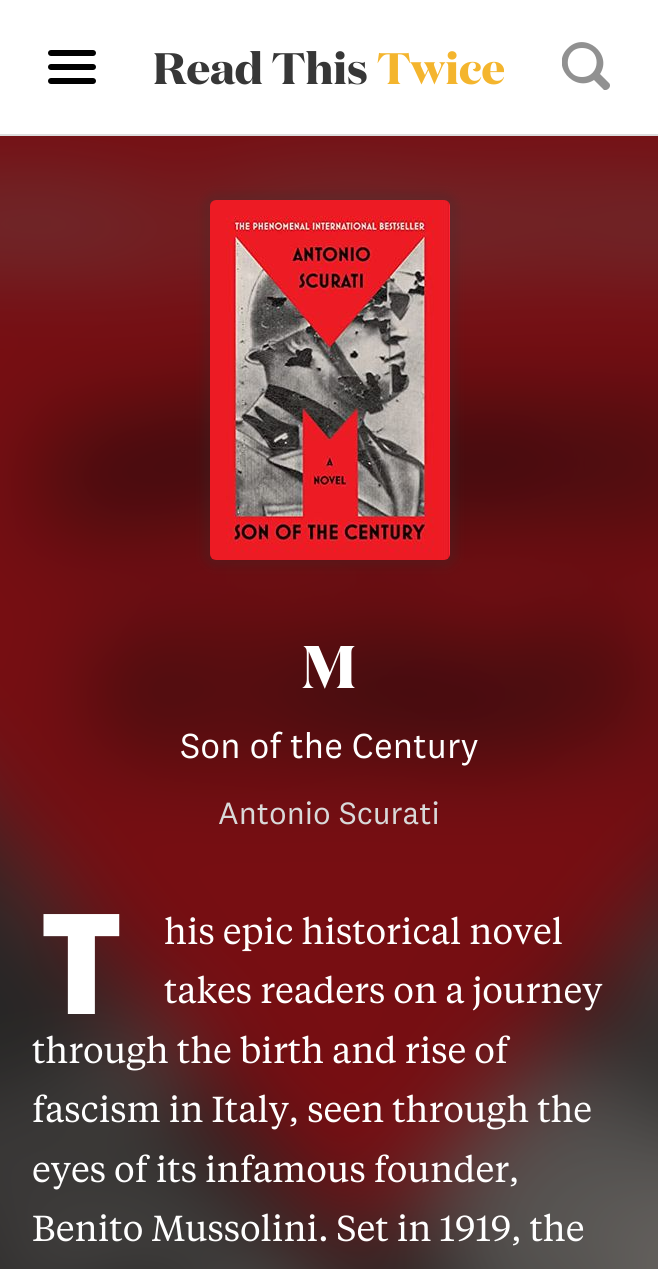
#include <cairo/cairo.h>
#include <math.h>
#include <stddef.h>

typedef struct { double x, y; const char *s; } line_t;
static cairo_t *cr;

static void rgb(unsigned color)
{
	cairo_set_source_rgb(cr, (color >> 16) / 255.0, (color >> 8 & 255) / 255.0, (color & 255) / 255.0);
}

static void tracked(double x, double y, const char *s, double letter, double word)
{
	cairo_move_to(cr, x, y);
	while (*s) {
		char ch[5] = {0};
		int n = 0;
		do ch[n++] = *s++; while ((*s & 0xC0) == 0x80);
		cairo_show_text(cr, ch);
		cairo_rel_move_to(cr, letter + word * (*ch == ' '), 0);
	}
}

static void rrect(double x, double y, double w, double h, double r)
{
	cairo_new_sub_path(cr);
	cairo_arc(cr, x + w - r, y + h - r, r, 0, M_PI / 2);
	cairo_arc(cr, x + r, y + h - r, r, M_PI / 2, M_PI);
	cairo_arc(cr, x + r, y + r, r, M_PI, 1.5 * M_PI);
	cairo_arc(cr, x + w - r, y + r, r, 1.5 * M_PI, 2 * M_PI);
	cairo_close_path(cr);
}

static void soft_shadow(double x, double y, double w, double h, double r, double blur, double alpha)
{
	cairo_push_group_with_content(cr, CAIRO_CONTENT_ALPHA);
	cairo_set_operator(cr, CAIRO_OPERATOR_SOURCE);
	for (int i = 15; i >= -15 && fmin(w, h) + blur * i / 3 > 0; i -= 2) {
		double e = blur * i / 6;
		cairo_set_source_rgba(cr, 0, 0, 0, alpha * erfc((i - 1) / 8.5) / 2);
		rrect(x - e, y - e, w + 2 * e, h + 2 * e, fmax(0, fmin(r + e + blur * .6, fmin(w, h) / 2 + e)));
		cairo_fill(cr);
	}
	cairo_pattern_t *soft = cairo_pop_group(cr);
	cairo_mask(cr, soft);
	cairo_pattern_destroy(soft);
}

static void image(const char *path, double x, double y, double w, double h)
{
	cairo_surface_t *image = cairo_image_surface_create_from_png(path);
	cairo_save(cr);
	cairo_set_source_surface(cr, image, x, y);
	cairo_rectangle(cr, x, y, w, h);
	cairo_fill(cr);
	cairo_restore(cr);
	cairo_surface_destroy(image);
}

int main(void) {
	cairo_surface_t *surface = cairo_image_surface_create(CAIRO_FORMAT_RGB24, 658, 1269);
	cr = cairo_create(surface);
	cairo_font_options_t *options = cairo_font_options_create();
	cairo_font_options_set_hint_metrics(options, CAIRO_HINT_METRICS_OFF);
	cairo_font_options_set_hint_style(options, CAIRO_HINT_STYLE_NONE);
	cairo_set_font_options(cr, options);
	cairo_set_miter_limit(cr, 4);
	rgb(0xffffff);
	cairo_paint(cr);
	rgb(0xdddddd);
	cairo_rectangle(cr, 0, 134, 658, 2);
	cairo_fill(cr);
	rgb(0x000000);
	rrect(48, 64, 48, 6, 3);
	cairo_fill(cr);
	rrect(48, 50, 48, 6, 3);
	cairo_fill(cr);
	rrect(48, 78, 48, 6, 3);
	cairo_fill(cr);
	cairo_save(cr);
	cairo_rectangle(cr, 562, 42, 48, 48);
	cairo_clip(cr);
	rgb(0x919191);
	cairo_new_path(cr);
	cairo_move_to(cr, 609, 83);
	cairo_line_to(cr, 600, 74);
	cairo_curve_to(cr, 613, 54, 585, 31, 568, 48);
	cairo_curve_to(cr, 550, 65, 574, 93, 594, 80);
	cairo_line_to(cr, 604, 90);
	cairo_curve_to(cr, 608, 91, 612, 86, 609, 83);
	cairo_close_path(cr);
	cairo_move_to(cr, 582, 48);
	cairo_curve_to(cr, 602, 48, 601, 77, 582, 77);
	cairo_curve_to(cr, 563, 77, 563, 48, 582, 48);
	cairo_close_path(cr);
	cairo_fill(cr);
	cairo_restore(cr);
	image("img/1.png", 0, 136, 658, 1133);
	rgb(0x313131);
	soft_shadow(202, 192, 256, 376, 14, 4, 0.2);
	image("img/2.png", 210, 200, 240, 360);
	cairo_select_font_face(cr, "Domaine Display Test", CAIRO_FONT_SLANT_NORMAL, CAIRO_FONT_WEIGHT_BOLD);
	cairo_set_font_size(cr, 44);
	rgb(0x373737);
	cairo_move_to(cr, 153, 84);
	cairo_show_text(cr, "Read This");
	rgb(0xf4b52e);
	cairo_move_to(cr, 377, 84);
	cairo_show_text(cr, "Twice");
	cairo_set_font_size(cr, 60);
	rgb(0xffffff);
	tracked(302, 688, "M", 1, 0);
	cairo_select_font_face(cr, "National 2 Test", CAIRO_FONT_SLANT_NORMAL, CAIRO_FONT_WEIGHT_NORMAL);
	cairo_set_font_size(cr, 36);
	cairo_move_to(cr, 180, 758);
	cairo_show_text(cr, "Son of the Century");
	cairo_set_font_size(cr, 32);
	rgb(0xd9d9d9);
	cairo_move_to(cr, 218, 824);
	cairo_show_text(cr, "Antonio Scurati");
	cairo_select_font_face(cr, "Noto Sans Black", CAIRO_FONT_SLANT_NORMAL, CAIRO_FONT_WEIGHT_NORMAL);
	cairo_set_font_size(cr, 140);
	rgb(0xffffff);
	tracked(40, 1014, "T", 1, 0);
	cairo_select_font_face(cr, "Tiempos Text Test", CAIRO_FONT_SLANT_NORMAL, CAIRO_FONT_WEIGHT_NORMAL);
	cairo_set_font_size(cr, 36);
	{
		static const line_t items[] = {
			{164, 944, "his epic historical novel"},
			{164, 1003, "takes readers on a journey"},
			{32, 1063, "through the birth and rise of"},
			{32, 1122, "fascism in Italy, seen through the"},
			{32, 1182, "eyes of its infamous founder,"},
			{32, 1241, "Benito Mussolini. Set in 1919, the"},
		};
		for (size_t i = 0; i < sizeof items / sizeof *items; i++) {
			cairo_move_to(cr, items[i].x, items[i].y);
			cairo_show_text(cr, items[i].s);
		}
	}
	cairo_surface_write_to_png(surface, "page.png");
	cairo_font_options_destroy(options);
	cairo_destroy(cr);
	cairo_surface_destroy(surface);
	return 0;
}
